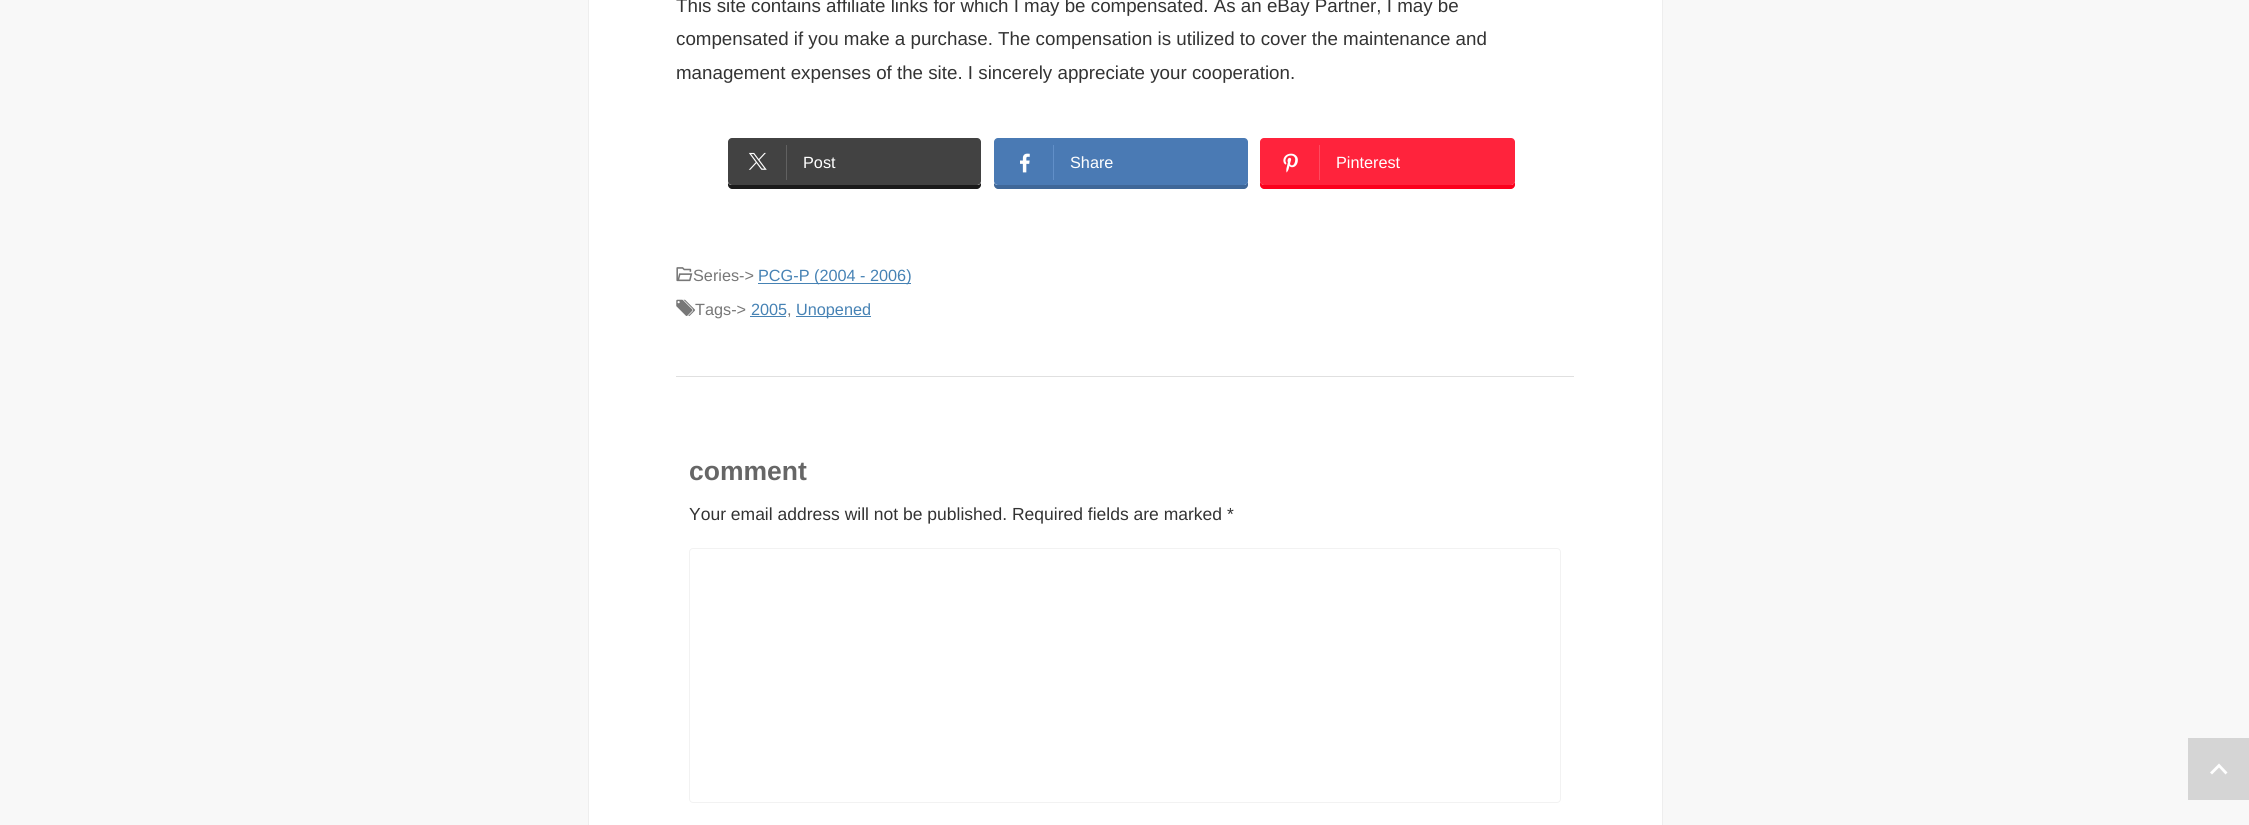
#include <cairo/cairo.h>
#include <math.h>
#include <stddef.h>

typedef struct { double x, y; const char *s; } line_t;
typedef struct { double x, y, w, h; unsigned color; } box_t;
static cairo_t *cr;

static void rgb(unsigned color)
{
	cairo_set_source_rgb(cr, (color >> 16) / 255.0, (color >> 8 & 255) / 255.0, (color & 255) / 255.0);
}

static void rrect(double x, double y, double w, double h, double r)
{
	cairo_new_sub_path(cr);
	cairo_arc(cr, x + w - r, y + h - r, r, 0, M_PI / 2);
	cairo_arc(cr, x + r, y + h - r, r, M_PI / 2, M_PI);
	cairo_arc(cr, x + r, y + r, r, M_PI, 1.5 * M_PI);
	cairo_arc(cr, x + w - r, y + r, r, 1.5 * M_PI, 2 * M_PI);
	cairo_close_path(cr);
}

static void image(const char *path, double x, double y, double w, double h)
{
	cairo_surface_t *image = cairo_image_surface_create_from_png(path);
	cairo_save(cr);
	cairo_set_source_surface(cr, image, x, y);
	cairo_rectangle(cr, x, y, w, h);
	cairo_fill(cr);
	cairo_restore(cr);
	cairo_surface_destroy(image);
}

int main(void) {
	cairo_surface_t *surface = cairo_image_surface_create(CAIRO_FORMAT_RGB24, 2249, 825);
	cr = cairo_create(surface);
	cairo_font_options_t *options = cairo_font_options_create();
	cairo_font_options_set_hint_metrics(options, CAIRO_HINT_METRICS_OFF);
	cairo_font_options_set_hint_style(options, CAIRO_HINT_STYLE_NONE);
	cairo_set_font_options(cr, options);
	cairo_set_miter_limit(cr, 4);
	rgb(0xf8f8f8);
	cairo_paint(cr);
	rgb(0xffffff);
	cairo_rectangle(cr, 588.5, -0.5, 1074, 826);
	cairo_fill_preserve(cr);
	rgb(0xeeeeee);
	cairo_set_line_width(cr, 1);
	cairo_stroke(cr);
	rgb(0x1a1a1a);
	cairo_new_path(cr);
	cairo_move_to(cr, 728, 183);
	cairo_line_to(cr, 728, 185);
	cairo_curve_to(cr, 728, 187, 730, 189, 732, 189);
	cairo_line_to(cr, 977, 189);
	cairo_curve_to(cr, 979, 189, 981, 187, 981, 185);
	cairo_line_to(cr, 981, 183);
	cairo_curve_to(cr, 980, 184, 979, 185, 978, 185);
	cairo_line_to(cr, 731, 185);
	cairo_curve_to(cr, 730, 185, 729, 184, 728, 183);
	cairo_close_path(cr);
	cairo_fill(cr);
	rgb(0x424242);
	rrect(728, 138, 253, 47, 4);
	cairo_fill(cr);
	rgb(0x616161);
	cairo_rectangle(cr, 786, 145, 1, 35);
	cairo_fill(cr);
	image("img/1.png", 748, 152, 19, 18);
	rgb(0x3f6798);
	cairo_new_path(cr);
	cairo_move_to(cr, 994, 183);
	cairo_line_to(cr, 994, 185);
	cairo_curve_to(cr, 994, 187, 996, 189, 998, 189);
	cairo_line_to(cr, 1244, 189);
	cairo_curve_to(cr, 1246, 189, 1248, 187, 1248, 185);
	cairo_line_to(cr, 1248, 145);
	cairo_line_to(cr, 1248, 143);
	cairo_line_to(cr, 1248, 181);
	cairo_curve_to(cr, 1248, 183, 1246, 185, 1244, 185);
	cairo_line_to(cr, 998, 185);
	cairo_curve_to(cr, 996, 185, 995, 184, 994, 183);
	cairo_close_path(cr);
	cairo_fill(cr);
	rgb(0x4a7ab4);
	rrect(994, 138, 254, 47, 4);
	cairo_fill(cr);
	rgb(0x618fc8);
	cairo_rectangle(cr, 1053, 145, 1, 35);
	cairo_fill(cr);
	image("img/2.png", 1020, 153, 10, 20);
	rgb(0xfb001c);
	cairo_new_path(cr);
	cairo_move_to(cr, 1260, 181);
	cairo_line_to(cr, 1260, 185);
	cairo_curve_to(cr, 1260, 187, 1262, 189, 1264, 189);
	cairo_line_to(cr, 1511, 189);
	cairo_curve_to(cr, 1513, 189, 1515, 187, 1515, 185);
	cairo_line_to(cr, 1515, 181);
	cairo_curve_to(cr, 1515, 183, 1513, 185, 1511, 185);
	cairo_line_to(cr, 1264, 185);
	cairo_curve_to(cr, 1262, 185, 1260, 183, 1260, 181);
	cairo_close_path(cr);
	cairo_fill(cr);
	rgb(0xff233c);
	rrect(1260, 138, 255, 47, 4);
	cairo_fill(cr);
	rgb(0xff4a5f);
	cairo_rectangle(cr, 1319, 145, 1, 35);
	cairo_fill(cr);
	image("img/3.png", 1283, 153, 15, 20);
	image("img/4.png", 676, 267, 17, 15);
	rgb(0x4682b4);
	cairo_rectangle(cr, 758, 283, 153, 1);
	cairo_fill(cr);
	image("img/5.png", 676, 299, 19, 17);
	{
		static const box_t items[] = {
			{750, 316, 36, 1, 0x4682b4},
			{796, 316, 75, 1, 0x4682b4},
			{676, 376, 898, 1, 0xe0e0e0},
		};
		for (size_t i = 0; i < sizeof items / sizeof *items; i++) {
			rgb(items[i].color);
			cairo_rectangle(cr, items[i].x, items[i].y, items[i].w, items[i].h);
			cairo_fill(cr);
		}
	}
	rrect(689.5, 548.5, 871, 254, 3.5);
	rgb(0xf2f2f2);
	cairo_stroke(cr);
	rgb(0xd5d5d5);
	cairo_rectangle(cr, 2188, 738, 61, 62);
	cairo_fill(cr);
	rgb(0xfefefe);
	cairo_new_path(cr);
	cairo_move_to(cr, 2219, 767.5);
	cairo_line_to(cr, 2212, 774.5);
	cairo_line_to(cr, 2210, 772.5);
	cairo_line_to(cr, 2219, 763.5);
	cairo_line_to(cr, 2227.5, 772.5);
	cairo_line_to(cr, 2225.5, 774.5);
	cairo_close_path(cr);
	cairo_fill(cr);
	cairo_select_font_face(cr, "Liberation Sans", CAIRO_FONT_SLANT_NORMAL, CAIRO_FONT_WEIGHT_NORMAL);
	cairo_set_font_size(cr, 18.75);
	rgb(0x333333);
	{
		static const line_t items[] = {
			{676, 12, "This site contains affiliate links for which I may be compensated. As an eBay Partner, I may be"},
			{676, 45, "compensated if you make a purchase. The compensation is utilized to cover the maintenance and"},
			{676, 79, "management expenses of the site. I sincerely appreciate your cooperation."},
		};
		for (size_t i = 0; i < sizeof items / sizeof *items; i++) {
			cairo_move_to(cr, items[i].x, items[i].y);
			cairo_show_text(cr, items[i].s);
		}
	}
	cairo_set_font_size(cr, 16.25);
	rgb(0xffffff);
	{
		static const line_t items[] = {
			{803, 168, "Post"},
			{1070, 168, "Share"},
			{1336, 168, "Pinterest"},
		};
		for (size_t i = 0; i < sizeof items / sizeof *items; i++) {
			cairo_move_to(cr, items[i].x, items[i].y);
			cairo_show_text(cr, items[i].s);
		}
	}
	rgb(0x777777);
	cairo_move_to(cr, 693, 281);
	cairo_show_text(cr, "Series->");
	rgb(0x4682b4);
	cairo_move_to(cr, 758, 281);
	cairo_show_text(cr, "PCG-P (2004 - 2006)");
	rgb(0x777777);
	cairo_move_to(cr, 695, 315);
	cairo_show_text(cr, "Tags->");
	rgb(0x4682b4);
	cairo_move_to(cr, 751, 315);
	cairo_show_text(cr, "2005");
	rgb(0x777777);
	cairo_move_to(cr, 787, 315);
	cairo_show_text(cr, ",");
	rgb(0x4682b4);
	cairo_move_to(cr, 796, 315);
	cairo_show_text(cr, "Unopened");
	cairo_select_font_face(cr, "Liberation Sans", CAIRO_FONT_SLANT_NORMAL, CAIRO_FONT_WEIGHT_BOLD);
	cairo_set_font_size(cr, 26.5);
	rgb(0x666666);
	cairo_move_to(cr, 689, 480);
	cairo_show_text(cr, "comment");
	cairo_select_font_face(cr, "Liberation Sans", CAIRO_FONT_SLANT_NORMAL, CAIRO_FONT_WEIGHT_NORMAL);
	cairo_set_font_size(cr, 17.5);
	rgb(0x333333);
	cairo_move_to(cr, 689, 520);
	cairo_show_text(cr, "Your email address will not be published. Required fields are marked *");
	cairo_surface_write_to_png(surface, "page.png");
	cairo_font_options_destroy(options);
	cairo_destroy(cr);
	cairo_surface_destroy(surface);
	return 0;
}
